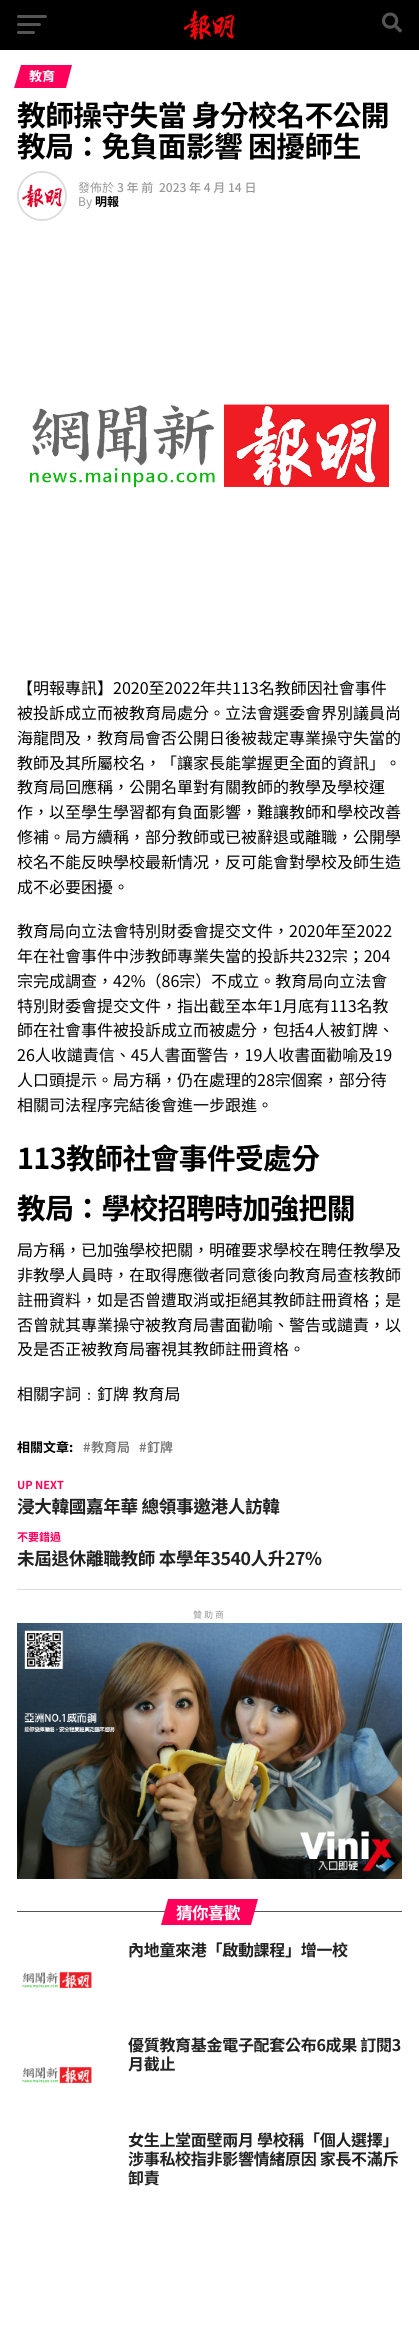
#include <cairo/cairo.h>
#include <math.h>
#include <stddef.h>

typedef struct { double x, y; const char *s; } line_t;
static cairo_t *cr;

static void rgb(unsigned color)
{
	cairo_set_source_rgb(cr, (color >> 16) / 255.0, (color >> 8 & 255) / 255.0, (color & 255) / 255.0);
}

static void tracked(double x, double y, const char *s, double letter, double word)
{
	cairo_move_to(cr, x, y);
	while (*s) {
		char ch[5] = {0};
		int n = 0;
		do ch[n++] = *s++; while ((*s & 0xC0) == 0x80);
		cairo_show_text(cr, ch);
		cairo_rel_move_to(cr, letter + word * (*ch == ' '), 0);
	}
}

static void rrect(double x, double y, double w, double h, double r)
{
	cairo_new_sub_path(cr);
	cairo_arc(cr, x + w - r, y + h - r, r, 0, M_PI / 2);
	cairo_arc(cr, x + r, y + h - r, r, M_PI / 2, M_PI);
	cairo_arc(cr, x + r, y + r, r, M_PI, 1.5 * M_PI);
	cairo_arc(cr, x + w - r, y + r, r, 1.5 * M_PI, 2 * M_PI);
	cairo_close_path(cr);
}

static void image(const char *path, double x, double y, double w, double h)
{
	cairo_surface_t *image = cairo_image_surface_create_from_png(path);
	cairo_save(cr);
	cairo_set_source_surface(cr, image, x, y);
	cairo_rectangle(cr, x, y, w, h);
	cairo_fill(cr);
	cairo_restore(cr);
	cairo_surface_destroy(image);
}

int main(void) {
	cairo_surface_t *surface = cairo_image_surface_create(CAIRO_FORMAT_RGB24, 419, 2328);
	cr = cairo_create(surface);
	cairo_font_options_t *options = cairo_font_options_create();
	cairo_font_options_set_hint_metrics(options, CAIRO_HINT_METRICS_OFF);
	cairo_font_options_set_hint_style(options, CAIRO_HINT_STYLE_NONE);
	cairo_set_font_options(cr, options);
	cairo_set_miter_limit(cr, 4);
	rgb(0xffffff);
	cairo_paint(cr);
	rgb(0x000000);
	cairo_rectangle(cr, 0, 0, 419, 50);
	cairo_fill(cr);
	rgb(0x555555);
	rrect(17, 15, 30, 3, 1.5);
	cairo_fill(cr);
	rrect(17, 23, 24, 3, 1.5);
	cairo_fill(cr);
	rrect(17, 31, 18, 3, 1.5);
	cairo_fill(cr);
	image("img/1.png", 184, 10, 50, 30);
	image("img/2.png", 382, 12, 20, 21);
	rgb(0xff005b);
	cairo_new_path(cr);
	cairo_move_to(cr, 21, 65);
	cairo_line_to(cr, 72, 65);
	cairo_line_to(cr, 66, 88);
	cairo_line_to(cr, 14, 88);
	cairo_close_path(cr);
	cairo_fill(cr);
	cairo_arc(cr, 42, 196, 24, 0, 2 * M_PI);
	rgb(0xdddddd);
	cairo_stroke(cr);
	image("img/3.png", 19, 173, 46, 46);
	image("img/4.png", 30, 404, 359, 83);
	cairo_rectangle(cr, 17, 1589, 385, 1);
	cairo_fill(cr);
	image("img/5.png", 17, 1623, 385, 256);
	rgb(0x555555);
	cairo_rectangle(cr, 17, 1911, 385, 1);
	cairo_fill(cr);
	rgb(0xff005b);
	cairo_new_path(cr);
	cairo_move_to(cr, 168, 1899);
	cairo_line_to(cr, 258, 1899);
	cairo_line_to(cr, 251, 1925);
	cairo_line_to(cr, 161, 1925);
	cairo_close_path(cr);
	cairo_fill(cr);
	image("img/6.png", 22, 1972, 70, 17);
	image("img/6.png", 22, 2067, 70, 17);
	cairo_select_font_face(cr, "Noto Sans TC", CAIRO_FONT_SLANT_NORMAL, CAIRO_FONT_WEIGHT_BOLD);
	cairo_set_font_size(cr, 13);
	rgb(0xffffff);
	cairo_move_to(cr, 29, 81);
	cairo_show_text(cr, "教育");
	cairo_set_font_size(cr, 28.75);
	rgb(0x000000);
	tracked(17, 126, "教師操守失當 身分校名不公開", -0.6, 0);
	tracked(17, 157, "教局：免負面影響 困擾師生", -0.6, 0);
	cairo_select_font_face(cr, "Noto Sans TC", CAIRO_FONT_SLANT_NORMAL, CAIRO_FONT_WEIGHT_NORMAL);
	cairo_set_font_size(cr, 12);
	rgb(0x999999);
	cairo_move_to(cr, 78, 192);
	cairo_show_text(cr, "發佈於");
	cairo_select_font_face(cr, "Noto Sans TC Medium", CAIRO_FONT_SLANT_NORMAL, CAIRO_FONT_WEIGHT_NORMAL);
	cairo_move_to(cr, 117, 192);
	cairo_show_text(cr, "3 年 前");
	cairo_move_to(cr, 159, 192);
	cairo_show_text(cr, "2023 年 4 月 14 日");
	cairo_select_font_face(cr, "Noto Sans TC", CAIRO_FONT_SLANT_NORMAL, CAIRO_FONT_WEIGHT_NORMAL);
	cairo_move_to(cr, 78, 206);
	cairo_show_text(cr, "By");
	cairo_select_font_face(cr, "Noto Sans TC", CAIRO_FONT_SLANT_NORMAL, CAIRO_FONT_WEIGHT_BOLD);
	rgb(0x000000);
	cairo_move_to(cr, 95, 206);
	cairo_show_text(cr, "明報");
	cairo_select_font_face(cr, "Noto Sans TC", CAIRO_FONT_SLANT_NORMAL, CAIRO_FONT_WEIGHT_NORMAL);
	cairo_set_font_size(cr, 16);
	{
		static const line_t items[] = {
			{17, 694, "【明報專訊】2020至2022年共113名教師因社會事件"},
			{17, 719, "被投訴成立而被教育局處分。立法會選委會界別議員尚"},
			{17, 744, "海龍問及，教育局會否公開日後被裁定專業操守失當的"},
			{17, 769, "教師及其所屬校名，「讓家長能掌握更全面的資訊」。"},
			{17, 793, "教育局回應稱，公開名單對有關教師的教學及學校運"},
			{17, 818, "作，以至學生學習都有負面影響，難讓教師和學校改善"},
			{17, 843, "修補。局方續稱，部分教師或已被辭退或離職，公開學"},
			{17, 868, "校名不能反映學校最新情况，反可能會對學校及師生造"},
			{17, 893, "成不必要困擾。"},
			{17, 937, "教育局向立法會特別財委會提交文件，2020年至2022"},
			{17, 962, "年在社會事件中涉教師專業失當的投訴共232宗；204"},
			{17, 987, "宗完成調查，42%（86宗）不成立。教育局向立法會"},
			{17, 1012, "特別財委會提交文件，指出截至本年1月底有113名教"},
			{17, 1036, "師在社會事件被投訴成立而被處分，包括4人被釘牌、"},
			{17, 1061, "26人收譴責信、45人書面警告，19人收書面勸喻及19"},
			{17, 1086, "人口頭提示。局方稱，仍在處理的28宗個案，部分待"},
			{17, 1111, "相關司法程序完結後會進一步跟進。"},
		};
		for (size_t i = 0; i < sizeof items / sizeof *items; i++) {
			cairo_move_to(cr, items[i].x, items[i].y);
			cairo_show_text(cr, items[i].s);
		}
	}
	cairo_select_font_face(cr, "Noto Sans TC", CAIRO_FONT_SLANT_NORMAL, CAIRO_FONT_WEIGHT_BOLD);
	cairo_set_font_size(cr, 28.75);
	tracked(17, 1169, "113教師社會事件受處分", -0.6, 0);
	tracked(17, 1219, "教局：學校招聘時加強把關", -0.6, 0);
	cairo_select_font_face(cr, "Noto Sans TC", CAIRO_FONT_SLANT_NORMAL, CAIRO_FONT_WEIGHT_NORMAL);
	cairo_set_font_size(cr, 16);
	{
		static const line_t items[] = {
			{17, 1256, "局方稱，已加強學校把關，明確要求學校在聘任教學及"},
			{17, 1281, "非教學人員時，在取得應徵者同意後向教育局查核教師"},
			{17, 1306, "註冊資料，如是否曾遭取消或拒絕其教師註冊資格；是"},
			{17, 1331, "否曾就其專業操守被教育局書面勸喻、警告或譴責，以"},
			{17, 1355, "及是否正被教育局審視其教師註冊資格。"},
			{17, 1400, "相關字詞﹕釘牌 教育局"},
		};
		for (size_t i = 0; i < sizeof items / sizeof *items; i++) {
			cairo_move_to(cr, items[i].x, items[i].y);
			cairo_show_text(cr, items[i].s);
		}
	}
	cairo_select_font_face(cr, "Noto Sans TC", CAIRO_FONT_SLANT_NORMAL, CAIRO_FONT_WEIGHT_BOLD);
	cairo_set_font_size(cr, 13);
	cairo_move_to(cr, 17, 1452);
	cairo_show_text(cr, "相關文章:");
	cairo_select_font_face(cr, "Noto Sans TC SemiBold", CAIRO_FONT_SLANT_NORMAL, CAIRO_FONT_WEIGHT_NORMAL);
	rgb(0x777777);
	{
		static const line_t items[] = {
			{83, 1452, "#"},
			{91, 1452, "教育局"},
			{139, 1452, "#"},
			{147, 1452, "釘牌"},
		};
		for (size_t i = 0; i < sizeof items / sizeof *items; i++) {
			cairo_move_to(cr, items[i].x, items[i].y);
			cairo_show_text(cr, items[i].s);
		}
	}
	cairo_select_font_face(cr, "Noto Sans TC", CAIRO_FONT_SLANT_NORMAL, CAIRO_FONT_WEIGHT_BOLD);
	cairo_set_font_size(cr, 11);
	rgb(0xff005b);
	cairo_move_to(cr, 17, 1489);
	cairo_show_text(cr, "UP NEXT");
	cairo_set_font_size(cr, 17.6);
	rgb(0x222222);
	tracked(17, 1513, "浸大韓國嘉年華 總領事邀港人訪韓", -0.35, 0);
	cairo_set_font_size(cr, 11);
	rgb(0xff005b);
	cairo_move_to(cr, 17, 1541);
	cairo_show_text(cr, "不要錯過");
	cairo_set_font_size(cr, 17.6);
	rgb(0x222222);
	tracked(17, 1565, "未屆退休離職教師 本學年3540人升27%", -0.35, 0);
	cairo_select_font_face(cr, "Noto Sans TC", CAIRO_FONT_SLANT_NORMAL, CAIRO_FONT_WEIGHT_NORMAL);
	cairo_set_font_size(cr, 9);
	rgb(0x999999);
	tracked(193, 1618, "贊助商", 2, 0);
	cairo_select_font_face(cr, "Noto Sans TC", CAIRO_FONT_SLANT_NORMAL, CAIRO_FONT_WEIGHT_BOLD);
	cairo_set_font_size(cr, 16.5);
	rgb(0xffffff);
	tracked(176, 1919, "猜你喜歡", -0.5, 0);
	cairo_set_font_size(cr, 16);
	rgb(0x222222);
	{
		static const line_t items[] = {
			{128, 1956, "內地童來港「啟動課程」增一校"},
			{128, 2051, "優質教育基金電子配套公布6成果 訂閱3"},
			{128, 2070, "月截止"},
			{128, 2146, "女生上堂面壁兩月 學校稱「個人選擇」"},
			{128, 2165, "涉事私校指非影響情緒原因 家長不滿斥"},
			{128, 2184, "卸責"},
		};
		for (size_t i = 0; i < sizeof items / sizeof *items; i++) {
			tracked(items[i].x, items[i].y, items[i].s, -0.3, 0);
		}
	}
	cairo_surface_write_to_png(surface, "page.png");
	cairo_font_options_destroy(options);
	cairo_destroy(cr);
	cairo_surface_destroy(surface);
	return 0;
}
